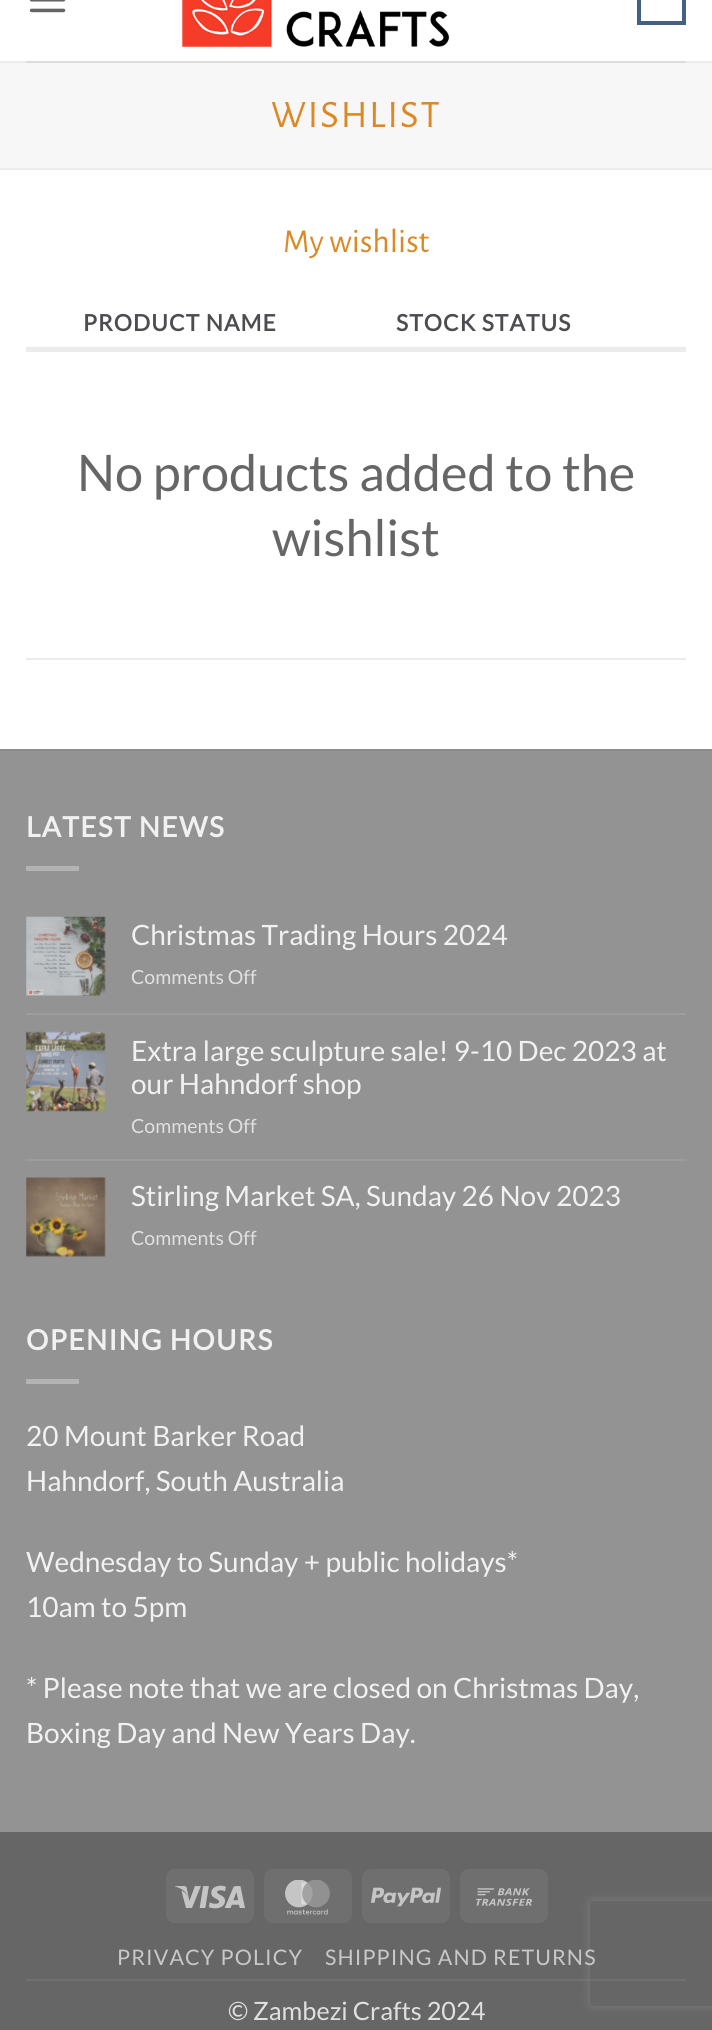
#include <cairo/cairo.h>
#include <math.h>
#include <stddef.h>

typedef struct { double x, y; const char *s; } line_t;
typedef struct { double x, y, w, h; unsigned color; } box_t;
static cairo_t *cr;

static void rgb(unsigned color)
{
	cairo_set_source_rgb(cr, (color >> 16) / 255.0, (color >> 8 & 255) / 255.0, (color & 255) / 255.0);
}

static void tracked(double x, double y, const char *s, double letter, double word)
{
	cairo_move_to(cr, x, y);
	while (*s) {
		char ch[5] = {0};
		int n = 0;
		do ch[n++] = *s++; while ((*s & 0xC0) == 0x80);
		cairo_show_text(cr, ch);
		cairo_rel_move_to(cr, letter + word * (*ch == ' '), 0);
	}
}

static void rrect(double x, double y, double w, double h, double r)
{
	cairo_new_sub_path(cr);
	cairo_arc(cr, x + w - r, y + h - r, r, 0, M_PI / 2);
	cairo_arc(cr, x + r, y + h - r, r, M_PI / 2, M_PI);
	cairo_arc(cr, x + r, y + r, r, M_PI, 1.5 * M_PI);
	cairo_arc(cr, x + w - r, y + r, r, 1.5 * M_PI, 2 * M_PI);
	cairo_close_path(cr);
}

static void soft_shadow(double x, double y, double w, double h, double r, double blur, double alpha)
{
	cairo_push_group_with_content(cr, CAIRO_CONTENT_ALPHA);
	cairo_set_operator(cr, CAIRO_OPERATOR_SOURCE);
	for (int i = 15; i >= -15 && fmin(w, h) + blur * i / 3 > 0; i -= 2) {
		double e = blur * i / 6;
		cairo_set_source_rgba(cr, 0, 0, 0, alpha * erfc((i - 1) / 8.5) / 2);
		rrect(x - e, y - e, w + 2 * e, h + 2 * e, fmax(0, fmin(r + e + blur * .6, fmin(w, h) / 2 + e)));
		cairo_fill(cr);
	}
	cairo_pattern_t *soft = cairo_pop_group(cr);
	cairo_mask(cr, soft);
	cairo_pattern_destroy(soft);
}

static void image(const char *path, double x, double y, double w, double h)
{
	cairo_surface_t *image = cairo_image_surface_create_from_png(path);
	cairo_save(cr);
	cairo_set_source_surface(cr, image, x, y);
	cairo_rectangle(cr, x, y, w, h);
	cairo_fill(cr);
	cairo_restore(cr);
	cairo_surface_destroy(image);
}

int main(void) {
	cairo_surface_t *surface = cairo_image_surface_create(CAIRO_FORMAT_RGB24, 712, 2030);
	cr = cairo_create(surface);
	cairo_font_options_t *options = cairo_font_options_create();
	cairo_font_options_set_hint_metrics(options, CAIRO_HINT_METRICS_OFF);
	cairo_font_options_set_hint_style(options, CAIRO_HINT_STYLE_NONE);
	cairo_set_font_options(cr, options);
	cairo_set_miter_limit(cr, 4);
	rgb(0xffffff);
	cairo_paint(cr);
	image("img/1.png", 29, 0, 37, 13);
	image("img/2.png", 182, 0, 268, 47);
	cairo_rectangle(cr, 639, -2, 45, 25);
	rgb(0x446084);
	cairo_set_line_width(cr, 4);
	cairo_stroke(cr);
	{
		static const box_t items[] = {
			{0, 61, 712, 2, 0xececec},
			{26, 61, 660, 2, 0xdcdcdd},
			{0, 63, 712, 105, 0xf7f7f7},
			{0, 168, 712, 2, 0xececec},
			{26, 347, 660, 5, 0xececec},
			{26, 658, 660, 2, 0xececec},
			{0, 751, 712, 1081, 0x939393},
			{0, 749, 712, 2, 0x8c8c8c},
			{26, 866, 53, 5, 0xb3b3b3},
		};
		for (size_t i = 0; i < sizeof items / sizeof *items; i++) {
			rgb(items[i].color);
			cairo_rectangle(cr, items[i].x, items[i].y, items[i].w, items[i].h);
			cairo_fill(cr);
		}
	}
	image("img/3.png", 26, 916, 80, 80);
	rgb(0x9c9c9c);
	cairo_rectangle(cr, 26, 1013, 660, 2);
	cairo_fill(cr);
	image("img/4.png", 26, 1031, 80, 81);
	cairo_rectangle(cr, 26, 1159, 660, 2);
	cairo_fill(cr);
	image("img/5.png", 26, 1177, 80, 80);
	rgb(0xb3b3b3);
	cairo_rectangle(cr, 26, 1379, 53, 5);
	cairo_fill(cr);
	rgb(0x666666);
	cairo_rectangle(cr, 0, 1832, 712, 198);
	cairo_fill(cr);
	rgb(0x6f6f6f);
	rrect(166, 1869, 88, 54, 9);
	cairo_fill(cr);
	image("img/6.png", 175, 1885, 70, 24);
	rrect(264, 1869, 88, 54, 9);
	cairo_fill(cr);
	image("img/7.png", 285, 1880, 45, 35);
	rrect(362, 1869, 88, 54, 9);
	cairo_fill(cr);
	image("img/8.png", 371, 1887, 70, 20);
	rrect(460, 1869, 88, 54, 9);
	cairo_fill(cr);
	image("img/9.png", 476, 1888, 56, 18);
	rgb(0x707070);
	cairo_rectangle(cr, 26, 1979, 660, 2);
	cairo_fill(cr);
	cairo_save(cr);
	cairo_set_fill_rule(cr, CAIRO_FILL_RULE_EVEN_ODD);
	cairo_new_path(cr);
	cairo_move_to(cr, 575, 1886);
	cairo_line_to(cr, 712, 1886);
	cairo_line_to(cr, 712, 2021);
	cairo_line_to(cr, 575, 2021);
	cairo_close_path(cr);
	cairo_move_to(cr, 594, 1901);
	cairo_line_to(cr, 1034, 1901);
	cairo_curve_to(cr, 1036, 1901, 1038, 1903, 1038, 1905);
	cairo_line_to(cr, 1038, 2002);
	cairo_curve_to(cr, 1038, 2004, 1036, 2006, 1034, 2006);
	cairo_line_to(cr, 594, 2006);
	cairo_curve_to(cr, 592, 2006, 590, 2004, 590, 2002);
	cairo_line_to(cr, 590, 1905);
	cairo_curve_to(cr, 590, 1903, 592, 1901, 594, 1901);
	cairo_close_path(cr);
	cairo_clip(cr);
	rgb(0x808080);
	soft_shadow(590, 1901, 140, 105, 4, 4.5, 1);
	cairo_restore(cr);
	cairo_select_font_face(cr, "Alegreya Sans", CAIRO_FONT_SLANT_NORMAL, CAIRO_FONT_WEIGHT_NORMAL);
	cairo_set_font_size(cr, 39);
	rgb(0xdc8824);
	tracked(271, 127, "WISHLIST", 2, 0);
	cairo_set_font_size(cr, 33.5);
	cairo_move_to(cr, 283, 252);
	cairo_show_text(cr, "My wishlist");
	cairo_select_font_face(cr, "Lato", CAIRO_FONT_SLANT_NORMAL, CAIRO_FONT_WEIGHT_BOLD);
	cairo_set_font_size(cr, 22.75);
	rgb(0x4c4c51);
	tracked(83, 331, "PRODUCT NAME", 1.1, 0);
	tracked(396, 331, "STOCK STATUS", 1.1, 0);
	cairo_select_font_face(cr, "Lato", CAIRO_FONT_SLANT_NORMAL, CAIRO_FONT_WEIGHT_NORMAL);
	cairo_set_font_size(cr, 50.4);
	rgb(0x666666);
	cairo_move_to(cr, 77, 491);
	cairo_show_text(cr, "No products added to the");
	cairo_move_to(cr, 272, 556);
	cairo_show_text(cr, "wishlist");
	cairo_select_font_face(cr, "Lato", CAIRO_FONT_SLANT_NORMAL, CAIRO_FONT_WEIGHT_BOLD);
	cairo_set_font_size(cr, 28);
	rgb(0xf1f1f1);
	tracked(26, 837, "LATEST NEWS", 1.4, 0);
	cairo_select_font_face(cr, "Lato", CAIRO_FONT_SLANT_NORMAL, CAIRO_FONT_WEIGHT_NORMAL);
	cairo_move_to(cr, 131, 945);
	cairo_show_text(cr, "Christmas Trading Hours 2024");
	cairo_set_font_size(cr, 19.5);
	rgb(0xe0e0e0);
	cairo_move_to(cr, 131, 984);
	cairo_show_text(cr, "Comments Off");
	cairo_set_font_size(cr, 28);
	rgb(0xf1f1f1);
	cairo_move_to(cr, 131, 1061);
	cairo_show_text(cr, "Extra large sculpture sale! 9-10 Dec 2023 at");
	cairo_move_to(cr, 131, 1094);
	cairo_show_text(cr, "our Hahndorf shop");
	cairo_set_font_size(cr, 19.5);
	rgb(0xe0e0e0);
	cairo_move_to(cr, 131, 1133);
	cairo_show_text(cr, "Comments Off");
	cairo_set_font_size(cr, 28);
	rgb(0xf1f1f1);
	cairo_move_to(cr, 131, 1206);
	cairo_show_text(cr, "Stirling Market SA, Sunday 26 Nov 2023");
	cairo_set_font_size(cr, 19.5);
	rgb(0xe0e0e0);
	cairo_move_to(cr, 131, 1245);
	cairo_show_text(cr, "Comments Off");
	cairo_select_font_face(cr, "Lato", CAIRO_FONT_SLANT_NORMAL, CAIRO_FONT_WEIGHT_BOLD);
	cairo_set_font_size(cr, 28);
	rgb(0xf1f1f1);
	tracked(26, 1350, "OPENING HOURS", 1.4, 0);
	cairo_select_font_face(cr, "Lato", CAIRO_FONT_SLANT_NORMAL, CAIRO_FONT_WEIGHT_NORMAL);
	{
		static const line_t items[] = {
			{26, 1446, "20 Mount Barker Road"},
			{26, 1491, "Hahndorf, South Australia"},
			{26, 1572, "Wednesday to Sunday + public holidays*"},
			{26, 1617, "10am to 5pm"},
			{26, 1698, "* Please note that we are closed on Christmas Day,"},
			{26, 1743, "Boxing Day and New Years Day."},
		};
		for (size_t i = 0; i < sizeof items / sizeof *items; i++) {
			cairo_move_to(cr, items[i].x, items[i].y);
			cairo_show_text(cr, items[i].s);
		}
	}
	cairo_set_font_size(cr, 21.4);
	rgb(0xc8c8c8);
	tracked(117, 1965, "PRIVACY POLICY", 1.1, 0);
	tracked(325, 1965, "SHIPPING AND RETURNS", 1.1, 0);
	cairo_set_font_size(cr, 25.25);
	rgb(0xe0e0e0);
	cairo_move_to(cr, 228, 2020);
	cairo_show_text(cr, "© Zambezi Crafts 2024");
	cairo_surface_write_to_png(surface, "page.png");
	cairo_font_options_destroy(options);
	cairo_destroy(cr);
	cairo_surface_destroy(surface);
	return 0;
}
